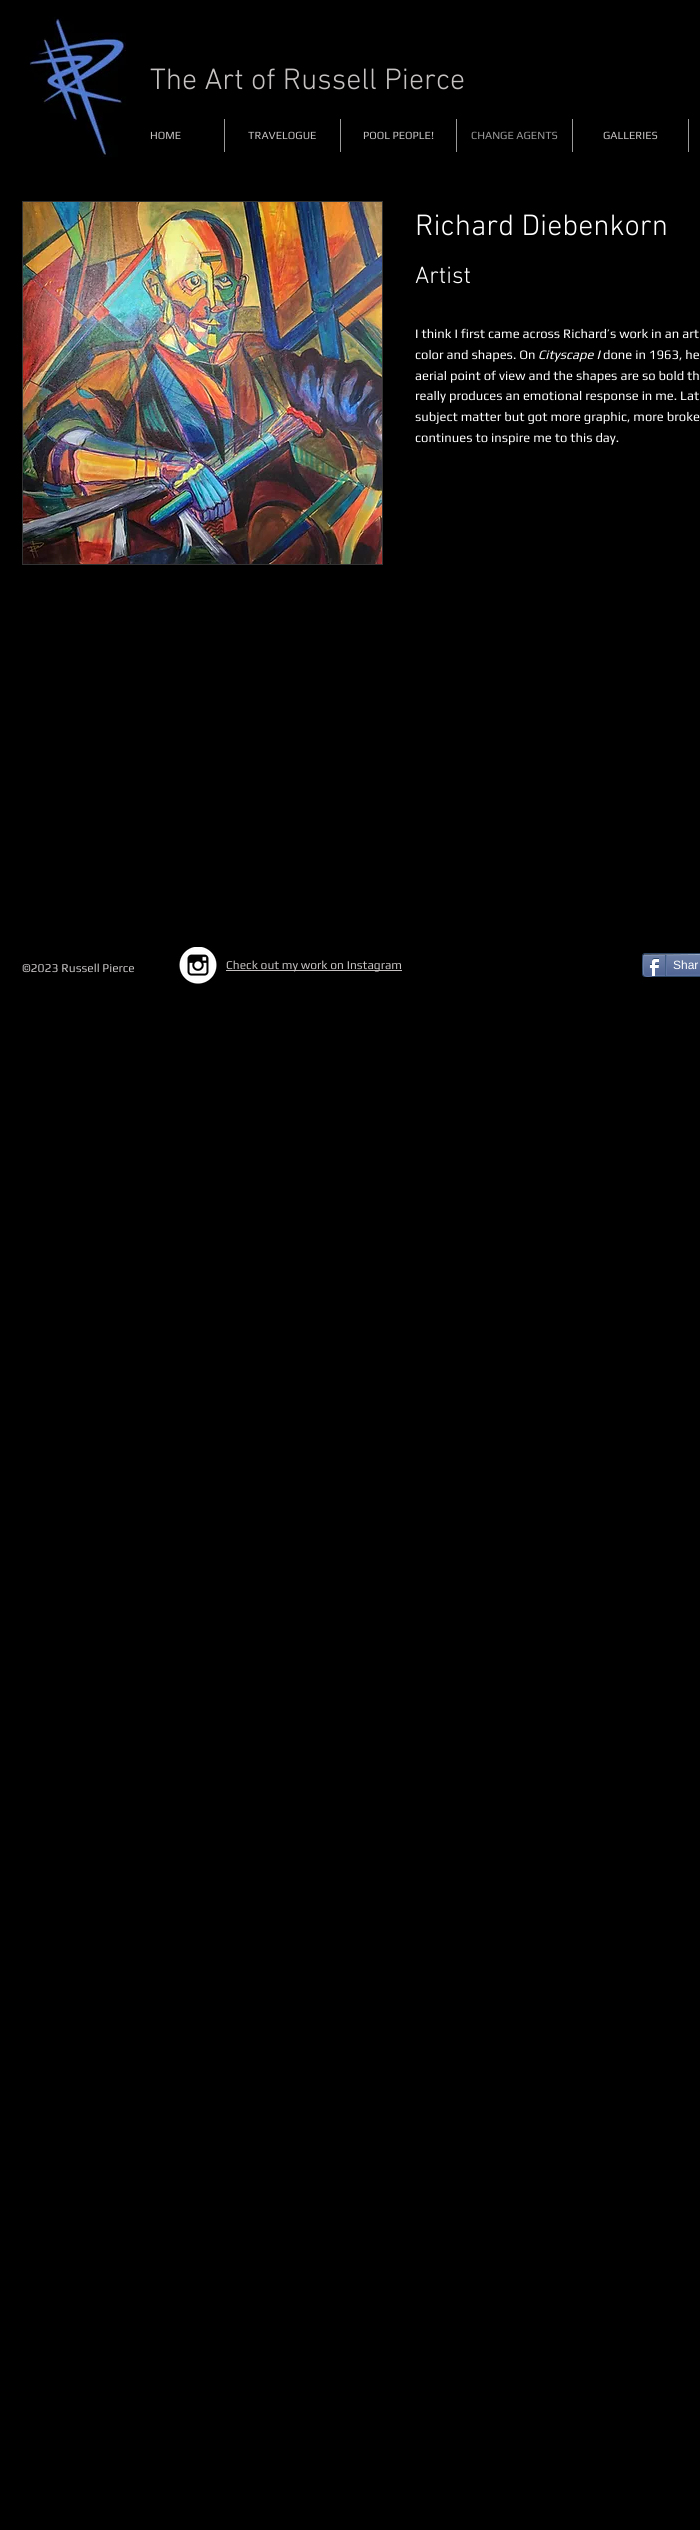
#include <cairo/cairo.h>
#include <math.h>
#include <stddef.h>

typedef struct { double x, y; const char *s; } line_t;
typedef struct { double x, y, w, h; unsigned color; } box_t;
static cairo_t *cr;

static void rgb(unsigned color)
{
	cairo_set_source_rgb(cr, (color >> 16) / 255.0, (color >> 8 & 255) / 255.0, (color & 255) / 255.0);
}

static void rrect(double x, double y, double w, double h, double r)
{
	cairo_new_sub_path(cr);
	cairo_arc(cr, x + w - r, y + h - r, r, 0, M_PI / 2);
	cairo_arc(cr, x + r, y + h - r, r, M_PI / 2, M_PI);
	cairo_arc(cr, x + r, y + r, r, M_PI, 1.5 * M_PI);
	cairo_arc(cr, x + w - r, y + r, r, 1.5 * M_PI, 2 * M_PI);
	cairo_close_path(cr);
}

static void image(const char *path, double x, double y, double w, double h)
{
	cairo_surface_t *image = cairo_image_surface_create_from_png(path);
	cairo_save(cr);
	cairo_set_source_surface(cr, image, x, y);
	cairo_rectangle(cr, x, y, w, h);
	cairo_fill(cr);
	cairo_restore(cr);
	cairo_surface_destroy(image);
}

int main(void) {
	cairo_surface_t *surface = cairo_image_surface_create(CAIRO_FORMAT_RGB24, 700, 2530);
	cr = cairo_create(surface);
	cairo_font_options_t *options = cairo_font_options_create();
	cairo_font_options_set_hint_metrics(options, CAIRO_HINT_METRICS_OFF);
	cairo_font_options_set_hint_style(options, CAIRO_HINT_STYLE_NONE);
	cairo_set_font_options(cr, options);
	cairo_set_miter_limit(cr, 4);
	rgb(0x000000);
	cairo_paint(cr);
	image("img/1.png", 29, 17, 97, 140);
	{
		static const box_t items[] = {
			{224, 119, 1, 33, 0x999999},
			{340, 119, 1, 33, 0x999999},
			{456, 119, 1, 33, 0x999999},
			{572, 119, 1, 33, 0x999999},
			{688, 119, 1, 33, 0x999999},
			{22, 201, 361, 364, 0x333333},
		};
		for (size_t i = 0; i < sizeof items / sizeof *items; i++) {
			rgb(items[i].color);
			cairo_rectangle(cr, items[i].x, items[i].y, items[i].w, items[i].h);
			cairo_fill(cr);
		}
	}
	image("img/2.png", 23, 202, 359, 362);
	image("img/3.png", 179, 947, 38, 37);
	rgb(0xc6c2c2);
	cairo_rectangle(cr, 226, 970, 176, 1);
	cairo_fill(cr);
	rrect(642.5, 953.5, 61, 23, 2.5);
	rgb(0x2d4565);
	cairo_set_line_width(cr, 1);
	cairo_stroke(cr);
	image("img/4.png", 643, 955, 57, 21);
	cairo_new_path(cr);
	cairo_move_to(cr, 644, 955);
	cairo_line_to(cr, 699, 954.5);
	cairo_curve_to(cr, 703, 954.5, 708, 952, 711, 955);
	rgb(0x9aabc6);
	cairo_stroke(cr);
	cairo_new_path(cr);
	cairo_move_to(cr, 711, 975);
	cairo_line_to(cr, 656, 975.5);
	cairo_curve_to(cr, 652, 975.5, 647, 978, 644, 975);
	rgb(0x6176a3);
	cairo_stroke(cr);
	cairo_new_path(cr);
	cairo_move_to(cr, 644, 975);
	cairo_curve_to(cr, 643, 974.5, 643, 955.5, 644, 955);
	rgb(0x6f83ad);
	cairo_stroke(cr);
	image("img/5.png", 649, 958, 10, 18);
	rgb(0x425e85);
	cairo_rectangle(cr, 665, 955, 1, 21);
	cairo_fill(cr);
	rgb(0x6176a3);
	cairo_rectangle(cr, 666, 955, 1, 20);
	cairo_fill(cr);
	cairo_select_font_face(cr, "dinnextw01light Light", CAIRO_FONT_SLANT_NORMAL, CAIRO_FONT_WEIGHT_NORMAL);
	cairo_set_font_size(cr, 30);
	rgb(0xc6c2c2);
	cairo_move_to(cr, 150, 89);
	cairo_show_text(cr, "The Art of Russell Pierce");
	cairo_select_font_face(cr, "Play", CAIRO_FONT_SLANT_NORMAL, CAIRO_FONT_WEIGHT_NORMAL);
	cairo_set_font_size(cr, 11);
	{
		static const line_t items[] = {
			{150, 139, "HOME"},
			{248, 139, "TRAVELOGUE"},
			{363, 139, "POOL PEOPLE!"},
		};
		for (size_t i = 0; i < sizeof items / sizeof *items; i++) {
			cairo_move_to(cr, items[i].x, items[i].y);
			cairo_show_text(cr, items[i].s);
		}
	}
	rgb(0x999999);
	cairo_move_to(cr, 471, 139);
	cairo_show_text(cr, "CHANGE AGENTS");
	rgb(0xc6c2c2);
	cairo_move_to(cr, 603, 139);
	cairo_show_text(cr, "GALLERIES");
	cairo_select_font_face(cr, "dinnextw01light Light", CAIRO_FONT_SLANT_NORMAL, CAIRO_FONT_WEIGHT_NORMAL);
	cairo_set_font_size(cr, 30);
	rgb(0xffffff);
	cairo_move_to(cr, 415, 235);
	cairo_show_text(cr, "Richard Diebenkorn");
	cairo_set_font_size(cr, 24);
	cairo_move_to(cr, 415, 283);
	cairo_show_text(cr, "Artist");
	cairo_select_font_face(cr, "Play", CAIRO_FONT_SLANT_NORMAL, CAIRO_FONT_WEIGHT_NORMAL);
	cairo_set_font_size(cr, 13);
	cairo_move_to(cr, 415, 338);
	cairo_show_text(cr, "I think I first came across Richard’s work in an art");
	cairo_move_to(cr, 415, 359);
	cairo_show_text(cr, "color and shapes. On");
	cairo_select_font_face(cr, "Play", CAIRO_FONT_SLANT_ITALIC, CAIRO_FONT_WEIGHT_NORMAL);
	cairo_move_to(cr, 538, 359);
	cairo_show_text(cr, "Cityscape I");
	cairo_select_font_face(cr, "Play", CAIRO_FONT_SLANT_NORMAL, CAIRO_FONT_WEIGHT_NORMAL);
	{
		static const line_t items[] = {
			{603, 359, "done in 1963, he"},
			{415, 380, "aerial point of view and the shapes are so bold th"},
			{415, 400, "really produces an emotional response in me. Lat"},
			{415, 421, "subject matter but got more graphic, more broke"},
			{415, 442, "continues to inspire me to this day."},
		};
		for (size_t i = 0; i < sizeof items / sizeof *items; i++) {
			cairo_move_to(cr, items[i].x, items[i].y);
			cairo_show_text(cr, items[i].s);
		}
	}
	cairo_set_font_size(cr, 12);
	rgb(0xc6c2c2);
	cairo_move_to(cr, 22, 972);
	cairo_show_text(cr, "©2023 Russell Pierce");
	cairo_move_to(cr, 226, 969);
	cairo_show_text(cr, "Check out my work on Instagram");
	cairo_select_font_face(cr, "Liberation Sans", CAIRO_FONT_SLANT_NORMAL, CAIRO_FONT_WEIGHT_NORMAL);
	rgb(0xffffff);
	cairo_move_to(cr, 673, 969);
	cairo_show_text(cr, "Shar");
	cairo_surface_write_to_png(surface, "page.png");
	cairo_font_options_destroy(options);
	cairo_destroy(cr);
	cairo_surface_destroy(surface);
	return 0;
}
